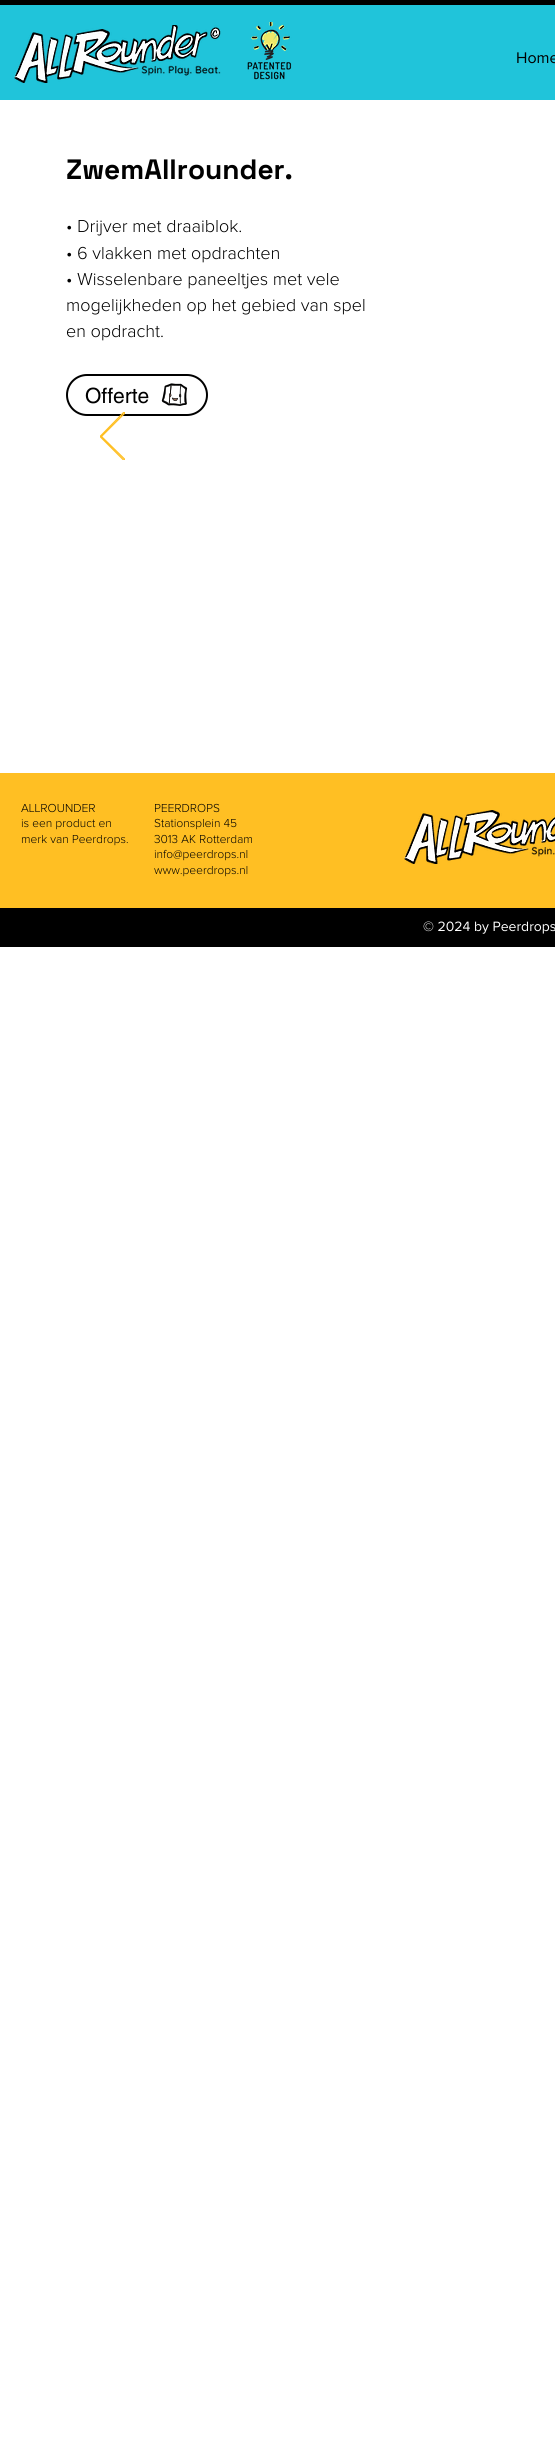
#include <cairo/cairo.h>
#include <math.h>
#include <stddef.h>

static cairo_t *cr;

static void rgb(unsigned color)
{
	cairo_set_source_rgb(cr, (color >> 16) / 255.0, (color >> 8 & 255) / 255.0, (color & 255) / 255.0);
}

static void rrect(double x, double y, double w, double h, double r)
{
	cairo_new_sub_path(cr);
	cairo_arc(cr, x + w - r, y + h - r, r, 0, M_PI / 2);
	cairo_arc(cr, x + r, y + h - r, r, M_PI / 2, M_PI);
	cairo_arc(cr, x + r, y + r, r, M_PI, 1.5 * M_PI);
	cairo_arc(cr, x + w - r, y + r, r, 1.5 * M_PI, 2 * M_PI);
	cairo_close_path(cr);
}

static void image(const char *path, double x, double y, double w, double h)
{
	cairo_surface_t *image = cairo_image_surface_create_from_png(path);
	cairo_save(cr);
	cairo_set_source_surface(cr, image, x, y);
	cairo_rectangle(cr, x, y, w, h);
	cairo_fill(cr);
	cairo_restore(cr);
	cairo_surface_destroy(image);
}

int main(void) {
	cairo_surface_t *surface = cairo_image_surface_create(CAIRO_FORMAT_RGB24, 555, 2448);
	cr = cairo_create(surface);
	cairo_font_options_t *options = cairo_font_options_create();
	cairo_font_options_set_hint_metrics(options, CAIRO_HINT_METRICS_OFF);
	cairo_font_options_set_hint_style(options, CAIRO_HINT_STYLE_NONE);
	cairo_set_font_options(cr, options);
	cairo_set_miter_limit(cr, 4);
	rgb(0xffffff);
	cairo_paint(cr);
	rgb(0x000000);
	cairo_rectangle(cr, 0, 0, 555, 5);
	cairo_fill(cr);
	rgb(0x20c4da);
	cairo_rectangle(cr, 0, 5, 555, 95);
	cairo_fill(cr);
	image("img/1.png", 14, 25, 207, 58);
	image("img/2.png", 247, 22, 45, 58);
	image("img/3.png", 67, 220, 174, 16);
	image("img/4.png", 67, 246, 212, 17);
	image("img/5.png", 67, 273, 272, 16);
	image("img/6.png", 67, 299, 298, 16);
	image("img/7.png", 67, 325, 96, 16);
	rrect(67, 375, 140, 40, 20);
	rgb(0x000000);
	cairo_stroke(cr);
	image("img/8.png", 161, 383, 27, 23);
	cairo_save(cr);
	cairo_rectangle(cr, 100, 412, 25, 48);
	cairo_clip(cr);
	cairo_new_path(cr);
	cairo_move_to(cr, 124, 460.5);
	cairo_line_to(cr, 100, 436.5);
	cairo_line_to(cr, 124, 412);
	cairo_line_to(cr, 125, 413);
	cairo_line_to(cr, 101.5, 436.5);
	cairo_line_to(cr, 125, 459.5);
	cairo_close_path(cr);
	rgb(0xffbf23);
	cairo_set_line_width(cr, 1.2);
	cairo_stroke(cr);
	cairo_restore(cr);
	rgb(0xffbf23);
	cairo_rectangle(cr, 0, 773, 555, 135);
	cairo_fill(cr);
	image("img/9.png", 21, 803, 74, 10);
	image("img/10.png", 21, 819, 90, 11);
	image("img/11.png", 21, 835, 107, 11);
	image("img/12.png", 155, 803, 65, 10);
	image("img/13.png", 154, 818, 83, 12);
	image("img/14.png", 154, 834, 98, 10);
	image("img/15.png", 154, 849, 94, 12);
	image("img/16.png", 154, 866, 94, 11);
	image("img/17.png", 404, 810, 151, 54);
	rgb(0x000000);
	cairo_rectangle(cr, 0, 908, 555, 39);
	cairo_fill(cr);
	cairo_select_font_face(cr, "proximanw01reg", CAIRO_FONT_SLANT_NORMAL, CAIRO_FONT_WEIGHT_NORMAL);
	cairo_set_font_size(cr, 16);
	cairo_move_to(cr, 516, 63);
	cairo_show_text(cr, "Home");
	cairo_select_font_face(cr, "Space Grotesk", CAIRO_FONT_SLANT_NORMAL, CAIRO_FONT_WEIGHT_BOLD);
	cairo_set_font_size(cr, 28);
	cairo_move_to(cr, 66, 179);
	cairo_show_text(cr, "ZwemAllrounder.");
	cairo_select_font_face(cr, "helvetica", CAIRO_FONT_SLANT_NORMAL, CAIRO_FONT_WEIGHT_NORMAL);
	cairo_set_font_size(cr, 21);
	cairo_move_to(cr, 85, 403);
	cairo_show_text(cr, "Offerte");
	cairo_select_font_face(cr, "proximanw01reg", CAIRO_FONT_SLANT_NORMAL, CAIRO_FONT_WEIGHT_NORMAL);
	cairo_set_font_size(cr, 14);
	rgb(0xffffff);
	cairo_move_to(cr, 423, 931);
	cairo_show_text(cr, "© 2024 by Peerdrops");
	cairo_surface_write_to_png(surface, "page.png");
	cairo_font_options_destroy(options);
	cairo_destroy(cr);
	cairo_surface_destroy(surface);
	return 0;
}
